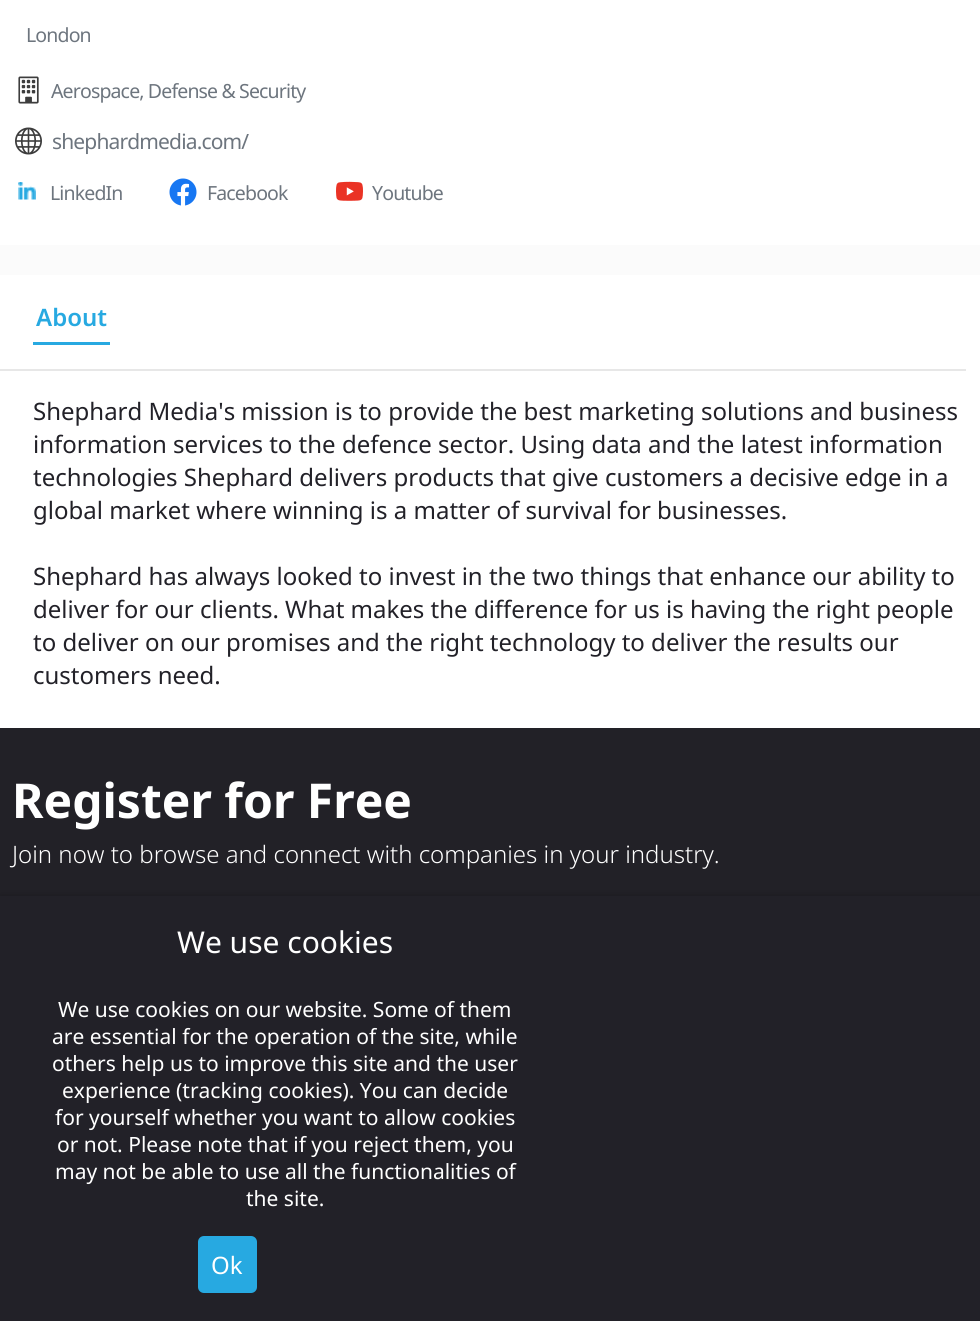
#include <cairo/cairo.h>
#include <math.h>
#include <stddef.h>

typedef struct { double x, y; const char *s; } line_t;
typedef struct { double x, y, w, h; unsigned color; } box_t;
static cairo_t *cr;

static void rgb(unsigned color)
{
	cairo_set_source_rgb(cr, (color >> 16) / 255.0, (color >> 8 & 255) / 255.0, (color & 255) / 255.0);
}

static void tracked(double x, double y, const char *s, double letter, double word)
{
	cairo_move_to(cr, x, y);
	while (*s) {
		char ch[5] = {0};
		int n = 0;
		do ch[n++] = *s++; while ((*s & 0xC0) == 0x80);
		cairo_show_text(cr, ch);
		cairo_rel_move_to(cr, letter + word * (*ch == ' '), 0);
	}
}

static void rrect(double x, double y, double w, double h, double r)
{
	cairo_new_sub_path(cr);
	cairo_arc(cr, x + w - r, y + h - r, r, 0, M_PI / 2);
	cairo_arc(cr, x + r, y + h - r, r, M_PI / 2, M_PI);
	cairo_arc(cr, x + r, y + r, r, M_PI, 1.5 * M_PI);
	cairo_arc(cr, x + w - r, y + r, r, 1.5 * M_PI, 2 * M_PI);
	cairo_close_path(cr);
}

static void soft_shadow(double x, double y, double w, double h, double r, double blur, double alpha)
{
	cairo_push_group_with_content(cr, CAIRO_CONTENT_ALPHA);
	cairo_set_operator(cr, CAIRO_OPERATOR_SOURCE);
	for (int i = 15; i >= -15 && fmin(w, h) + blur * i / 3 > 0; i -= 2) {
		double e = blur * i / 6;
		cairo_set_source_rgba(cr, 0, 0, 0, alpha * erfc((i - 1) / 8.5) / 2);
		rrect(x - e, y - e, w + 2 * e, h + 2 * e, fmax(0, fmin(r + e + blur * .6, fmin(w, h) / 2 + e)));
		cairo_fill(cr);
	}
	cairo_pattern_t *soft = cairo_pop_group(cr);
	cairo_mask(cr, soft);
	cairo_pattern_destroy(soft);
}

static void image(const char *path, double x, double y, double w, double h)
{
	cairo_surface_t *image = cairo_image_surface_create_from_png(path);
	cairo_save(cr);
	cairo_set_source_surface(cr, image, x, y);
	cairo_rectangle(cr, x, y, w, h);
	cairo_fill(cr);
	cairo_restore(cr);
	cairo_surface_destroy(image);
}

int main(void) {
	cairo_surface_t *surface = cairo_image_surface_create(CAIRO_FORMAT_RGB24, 980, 1321);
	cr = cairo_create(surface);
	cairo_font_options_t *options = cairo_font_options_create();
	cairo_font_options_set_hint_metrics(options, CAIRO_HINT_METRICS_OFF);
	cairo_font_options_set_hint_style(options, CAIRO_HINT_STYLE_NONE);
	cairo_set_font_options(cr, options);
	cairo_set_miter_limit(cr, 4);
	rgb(0xffffff);
	cairo_paint(cr);
	image("img/1.png", 18, 76, 21, 28);
	image("img/2.png", 15, 127, 27, 28);
	image("img/3.png", 18, 182, 18, 18);
	image("img/4.png", 169, 178, 28, 28);
	image("img/5.png", 336, 181, 27, 20);
	{
		static const box_t items[] = {
			{0, 245, 980, 30, 0xfbfbfb},
			{0, 369, 966, 2, 0xe7e7e7},
			{33, 342, 77, 3, 0x27a9e1},
			{0, 728, 980, 168, 0x222127},
		};
		for (size_t i = 0; i < sizeof items / sizeof *items; i++) {
			rgb(items[i].color);
			cairo_rectangle(cr, items[i].x, items[i].y, items[i].w, items[i].h);
			cairo_fill(cr);
		}
	}
	rgb(0x000000);
	soft_shadow(0, 896, 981, 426, 0, 4, 0.25);
	rgb(0x222128);
	cairo_rectangle(cr, 0, 896, 980, 425);
	cairo_fill(cr);
	rgb(0x27a9e1);
	rrect(198, 1236, 59, 57, 6);
	cairo_fill(cr);
	cairo_select_font_face(cr, "Noto Sans", CAIRO_FONT_SLANT_NORMAL, CAIRO_FONT_WEIGHT_NORMAL);
	cairo_set_font_size(cr, 19.5);
	rgb(0x6d757e);
	tracked(26, 42, "London", -0.85, 0);
	tracked(51, 98, "Aerospace, Defense & Security", -0.85, 0);
	cairo_set_font_size(cr, 21);
	tracked(52, 149, "shephardmedia.com/", -0.85, 0);
	cairo_set_font_size(cr, 19.5);
	{
		static const line_t items[] = {
			{50, 200, "LinkedIn"},
			{207, 200, "Facebook"},
			{372, 200, "Youtube"},
		};
		for (size_t i = 0; i < sizeof items / sizeof *items; i++) {
			tracked(items[i].x, items[i].y, items[i].s, -0.85, 0);
		}
	}
	cairo_select_font_face(cr, "Noto Sans SemiBold", CAIRO_FONT_SLANT_NORMAL, CAIRO_FONT_WEIGHT_NORMAL);
	cairo_set_font_size(cr, 24);
	rgb(0x27a9e1);
	cairo_move_to(cr, 36, 326);
	cairo_show_text(cr, "About");
	cairo_select_font_face(cr, "Noto Sans", CAIRO_FONT_SLANT_NORMAL, CAIRO_FONT_WEIGHT_NORMAL);
	rgb(0x222128);
	{
		static const line_t items[] = {
			{33, 420, "Shephard Media's mission is to provide the best marketing solutions and business"},
			{33, 453, "information services to the defence sector. Using data and the latest information"},
			{33, 486, "technologies Shephard delivers products that give customers a decisive edge in a"},
			{33, 519, "global market where winning is a matter of survival for businesses."},
			{33, 585, "Shephard has always looked to invest in the two things that enhance our ability to"},
			{33, 618, "deliver for our clients. What makes the difference for us is having the right people"},
			{33, 651, "to deliver on our promises and the right technology to deliver the results our"},
			{33, 684, "customers need."},
		};
		for (size_t i = 0; i < sizeof items / sizeof *items; i++) {
			cairo_move_to(cr, items[i].x, items[i].y);
			cairo_show_text(cr, items[i].s);
		}
	}
	cairo_select_font_face(cr, "Noto Sans", CAIRO_FONT_SLANT_NORMAL, CAIRO_FONT_WEIGHT_BOLD);
	cairo_set_font_size(cr, 48);
	rgb(0xffffff);
	cairo_move_to(cr, 12, 818);
	cairo_show_text(cr, "Register for Free");
	cairo_select_font_face(cr, "Noto Sans Light", CAIRO_FONT_SLANT_NORMAL, CAIRO_FONT_WEIGHT_NORMAL);
	cairo_set_font_size(cr, 24);
	cairo_move_to(cr, 12, 863);
	cairo_show_text(cr, "Join now to browse and connect with companies in your industry.");
	cairo_select_font_face(cr, "Noto Sans", CAIRO_FONT_SLANT_NORMAL, CAIRO_FONT_WEIGHT_NORMAL);
	cairo_set_font_size(cr, 30);
	cairo_move_to(cr, 177, 953);
	cairo_show_text(cr, "We use cookies");
	cairo_set_font_size(cr, 21);
	{
		static const line_t items[] = {
			{58, 1017, "We use cookies on our website. Some of them"},
			{52, 1044, "are essential for the operation of the site, while"},
			{52, 1071, "others help us to improve this site and the user"},
			{62, 1098, "experience (tracking cookies). You can decide"},
			{55, 1125, "for yourself whether you want to allow cookies"},
			{57, 1152, "or not. Please note that if you reject them, you"},
			{55, 1179, "may not be able to use all the functionalities of"},
			{246, 1206, "the site."},
		};
		for (size_t i = 0; i < sizeof items / sizeof *items; i++) {
			cairo_move_to(cr, items[i].x, items[i].y);
			cairo_show_text(cr, items[i].s);
		}
	}
	cairo_set_font_size(cr, 24);
	cairo_move_to(cr, 211, 1274);
	cairo_show_text(cr, "Ok");
	cairo_surface_write_to_png(surface, "page.png");
	cairo_font_options_destroy(options);
	cairo_destroy(cr);
	cairo_surface_destroy(surface);
	return 0;
}
